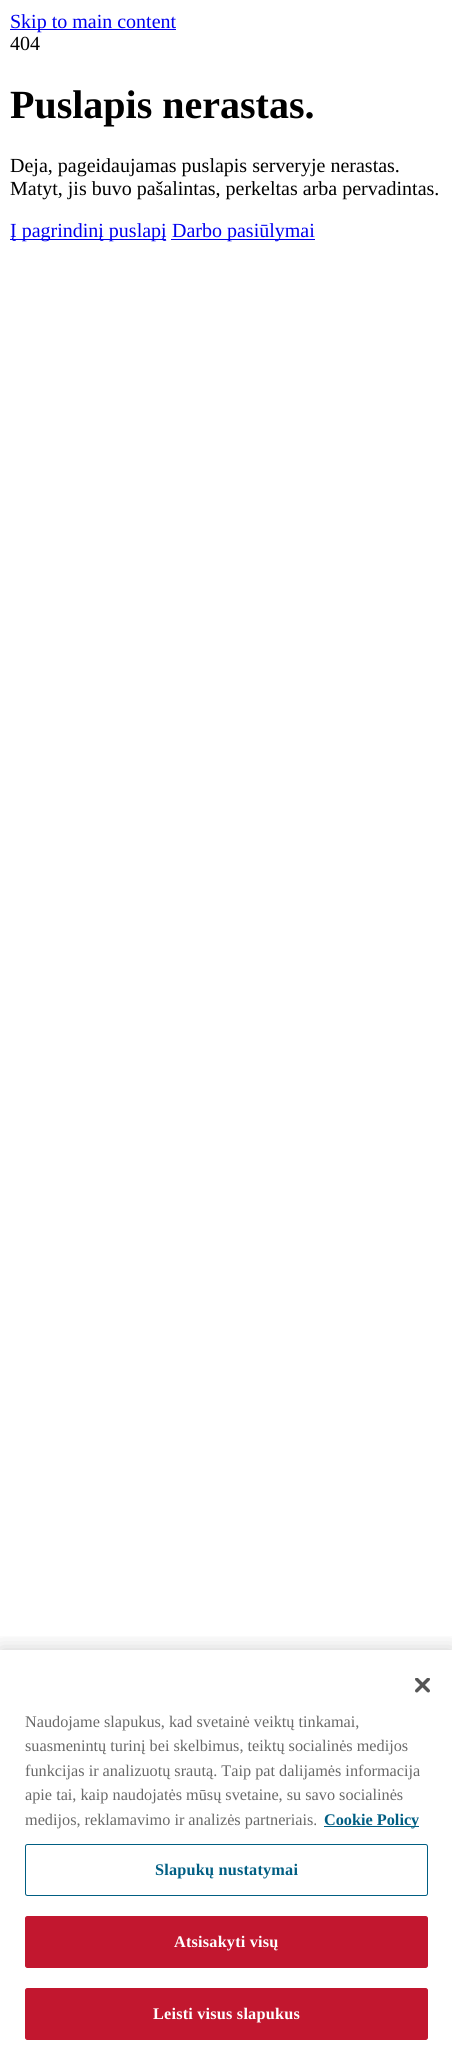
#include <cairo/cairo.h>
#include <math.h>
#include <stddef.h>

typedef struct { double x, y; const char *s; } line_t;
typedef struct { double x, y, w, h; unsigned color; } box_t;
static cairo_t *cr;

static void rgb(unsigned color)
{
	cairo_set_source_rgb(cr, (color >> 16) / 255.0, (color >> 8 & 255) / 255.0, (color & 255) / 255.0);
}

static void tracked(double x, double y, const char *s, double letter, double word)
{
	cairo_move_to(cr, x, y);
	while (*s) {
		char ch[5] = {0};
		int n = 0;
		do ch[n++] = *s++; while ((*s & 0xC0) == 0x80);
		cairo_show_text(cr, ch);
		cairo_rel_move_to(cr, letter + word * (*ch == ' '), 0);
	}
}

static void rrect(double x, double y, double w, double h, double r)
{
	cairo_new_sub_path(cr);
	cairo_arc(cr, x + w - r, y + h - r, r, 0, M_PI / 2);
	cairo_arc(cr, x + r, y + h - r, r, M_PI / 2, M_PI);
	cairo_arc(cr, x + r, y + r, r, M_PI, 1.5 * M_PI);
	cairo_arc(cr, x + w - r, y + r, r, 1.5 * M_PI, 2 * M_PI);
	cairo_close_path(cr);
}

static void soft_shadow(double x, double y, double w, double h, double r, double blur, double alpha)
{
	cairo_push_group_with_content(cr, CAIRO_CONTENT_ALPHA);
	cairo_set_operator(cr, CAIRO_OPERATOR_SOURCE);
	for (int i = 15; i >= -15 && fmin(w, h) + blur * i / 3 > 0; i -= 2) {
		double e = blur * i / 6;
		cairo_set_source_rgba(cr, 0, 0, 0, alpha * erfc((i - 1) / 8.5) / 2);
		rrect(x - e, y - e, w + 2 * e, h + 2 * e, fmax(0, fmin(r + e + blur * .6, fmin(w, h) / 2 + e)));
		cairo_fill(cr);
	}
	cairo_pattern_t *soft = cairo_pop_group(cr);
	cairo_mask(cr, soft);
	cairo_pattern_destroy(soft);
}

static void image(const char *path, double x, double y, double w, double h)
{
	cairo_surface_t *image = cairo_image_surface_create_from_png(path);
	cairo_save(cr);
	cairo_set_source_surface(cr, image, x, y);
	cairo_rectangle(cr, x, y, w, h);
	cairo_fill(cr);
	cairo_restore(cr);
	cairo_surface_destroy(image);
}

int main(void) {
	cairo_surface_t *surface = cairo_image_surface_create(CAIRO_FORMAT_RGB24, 452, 2059);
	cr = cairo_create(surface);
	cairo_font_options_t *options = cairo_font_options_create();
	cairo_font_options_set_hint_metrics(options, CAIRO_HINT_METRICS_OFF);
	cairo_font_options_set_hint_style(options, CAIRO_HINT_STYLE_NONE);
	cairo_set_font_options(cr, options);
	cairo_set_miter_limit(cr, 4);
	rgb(0xffffff);
	cairo_paint(cr);
	{
		static const box_t items[] = {
			{10, 29, 166, 1, 0x0000ee},
			{10, 239, 156, 1, 0x0000ee},
			{171, 239, 144, 1, 0x0000ee},
		};
		for (size_t i = 0; i < sizeof items / sizeof *items; i++) {
			rgb(items[i].color);
			cairo_rectangle(cr, items[i].x, items[i].y, items[i].w, items[i].h);
			cairo_fill(cr);
		}
	}
	cairo_save(cr);
	cairo_rectangle(cr, 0, 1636, 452, 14);
	cairo_clip(cr);
	rgb(0x000000);
	soft_shadow(0, 1650, 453, 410, 0, 11, 0.2);
	cairo_restore(cr);
	image("img/1.png", 415, 1678, 15, 15);
	rgb(0x005e83);
	cairo_rectangle(cr, 324, 1826, 95, 1);
	cairo_fill(cr);
	rrect(25.5, 1844.5, 402, 51, 2);
	cairo_set_line_width(cr, 1);
	cairo_stroke(cr);
	rgb(0xc2172f);
	rrect(25.5, 1916.5, 402, 51, 2);
	cairo_fill_preserve(cr);
	cairo_stroke(cr);
	rrect(25.5, 1988.5, 402, 51, 2);
	cairo_fill_preserve(cr);
	cairo_stroke(cr);
	cairo_select_font_face(cr, "Liberation Serif", CAIRO_FONT_SLANT_NORMAL, CAIRO_FONT_WEIGHT_NORMAL);
	cairo_set_font_size(cr, 20);
	rgb(0x0000ee);
	cairo_move_to(cr, 10, 28);
	cairo_show_text(cr, "Skip to main content");
	rgb(0x000000);
	cairo_move_to(cr, 10, 50);
	cairo_show_text(cr, "404");
	cairo_select_font_face(cr, "Liberation Serif", CAIRO_FONT_SLANT_NORMAL, CAIRO_FONT_WEIGHT_BOLD);
	cairo_set_font_size(cr, 40);
	cairo_move_to(cr, 10, 118);
	cairo_show_text(cr, "Puslapis nerastas.");
	cairo_select_font_face(cr, "Liberation Serif", CAIRO_FONT_SLANT_NORMAL, CAIRO_FONT_WEIGHT_NORMAL);
	cairo_set_font_size(cr, 20);
	cairo_move_to(cr, 10, 172);
	cairo_show_text(cr, "Deja, pageidaujamas puslapis serveryje nerastas.");
	cairo_move_to(cr, 10, 195);
	cairo_show_text(cr, "Matyt, jis buvo pašalintas, perkeltas arba pervadintas.");
	rgb(0x0000ee);
	cairo_move_to(cr, 10, 237);
	cairo_show_text(cr, "Į pagrindinį puslapį");
	cairo_move_to(cr, 172, 237);
	cairo_show_text(cr, "Darbo pasiūlymai");
	cairo_set_font_size(cr, 16.25);
	rgb(0x696969);
	{
		static const line_t items[] = {
			{25, 1727, "Naudojame slapukus, kad svetainė veiktų tinkamai,"},
			{25, 1751, "suasmenintų turinį bei skelbimus, teiktų socialinės medijos"},
			{25, 1776, "funkcijas ir analizuotų srautą. Taip pat dalijamės informacija"},
			{25, 1800, "apie tai, kaip naudojatės mūsų svetaine, su savo socialinės"},
			{25, 1825, "medijos, reklamavimo ir analizės partneriais."},
		};
		for (size_t i = 0; i < sizeof items / sizeof *items; i++) {
			cairo_move_to(cr, items[i].x, items[i].y);
			cairo_show_text(cr, items[i].s);
		}
	}
	cairo_select_font_face(cr, "Liberation Serif", CAIRO_FONT_SLANT_NORMAL, CAIRO_FONT_WEIGHT_BOLD);
	rgb(0x005e83);
	cairo_move_to(cr, 324, 1825);
	cairo_show_text(cr, "Cookie Policy");
	tracked(155, 1875, "Slapukų nustatymai", 0.2, 0);
	rgb(0xffffff);
	tracked(174, 1947, "Atsisakyti visų", 0.2, 0);
	tracked(153, 2019, "Leisti visus slapukus", 0.2, 0);
	cairo_surface_write_to_png(surface, "page.png");
	cairo_font_options_destroy(options);
	cairo_destroy(cr);
	cairo_surface_destroy(surface);
	return 0;
}
